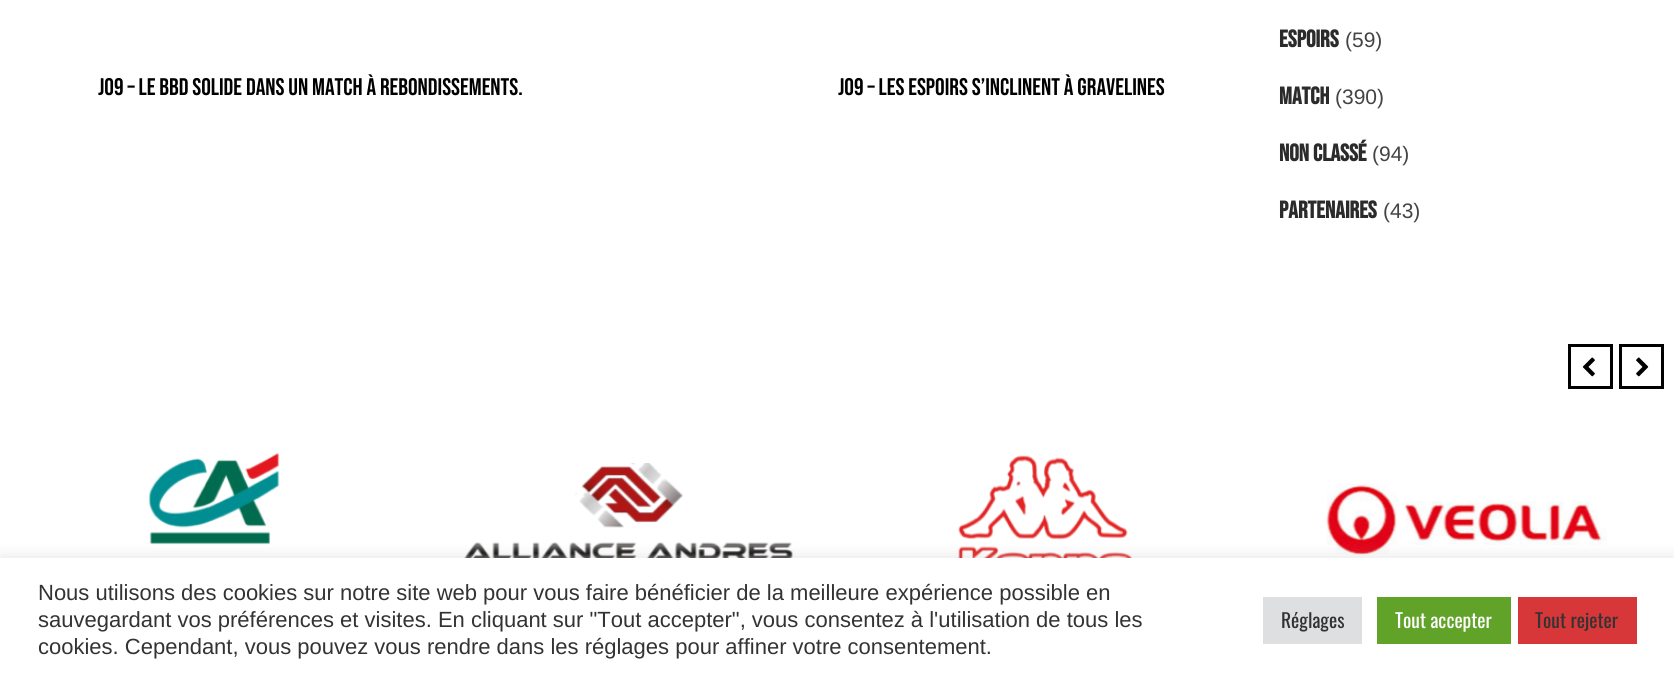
#include <cairo/cairo.h>
#include <math.h>
#include <stddef.h>

typedef struct { double x, y; const char *s; } line_t;
typedef struct { double x, y, w, h; unsigned color; } box_t;
static cairo_t *cr;

static void rgb(unsigned color)
{
	cairo_set_source_rgb(cr, (color >> 16) / 255.0, (color >> 8 & 255) / 255.0, (color & 255) / 255.0);
}

static void rrect(double x, double y, double w, double h, double r)
{
	cairo_new_sub_path(cr);
	cairo_arc(cr, x + w - r, y + h - r, r, 0, M_PI / 2);
	cairo_arc(cr, x + r, y + h - r, r, M_PI / 2, M_PI);
	cairo_arc(cr, x + r, y + r, r, M_PI, 1.5 * M_PI);
	cairo_arc(cr, x + w - r, y + r, r, 1.5 * M_PI, 2 * M_PI);
	cairo_close_path(cr);
}

static void soft_shadow(double x, double y, double w, double h, double r, double blur, double alpha)
{
	cairo_push_group_with_content(cr, CAIRO_CONTENT_ALPHA);
	cairo_set_operator(cr, CAIRO_OPERATOR_SOURCE);
	for (int i = 15; i >= -15 && fmin(w, h) + blur * i / 3 > 0; i -= 2) {
		double e = blur * i / 6;
		cairo_set_source_rgba(cr, 0, 0, 0, alpha * erfc((i - 1) / 8.5) / 2);
		rrect(x - e, y - e, w + 2 * e, h + 2 * e, fmax(0, fmin(r + e + blur * .6, fmin(w, h) / 2 + e)));
		cairo_fill(cr);
	}
	cairo_pattern_t *soft = cairo_pop_group(cr);
	cairo_mask(cr, soft);
	cairo_pattern_destroy(soft);
}

static void image(const char *path, double x, double y, double w, double h)
{
	cairo_surface_t *image = cairo_image_surface_create_from_png(path);
	cairo_save(cr);
	cairo_set_source_surface(cr, image, x, y);
	cairo_rectangle(cr, x, y, w, h);
	cairo_fill(cr);
	cairo_restore(cr);
	cairo_surface_destroy(image);
}

int main(void) {
	cairo_surface_t *surface = cairo_image_surface_create(CAIRO_FORMAT_RGB24, 1674, 681);
	cr = cairo_create(surface);
	cairo_font_options_t *options = cairo_font_options_create();
	cairo_font_options_set_hint_metrics(options, CAIRO_HINT_METRICS_OFF);
	cairo_font_options_set_hint_style(options, CAIRO_HINT_STYLE_NONE);
	cairo_set_font_options(cr, options);
	cairo_set_miter_limit(cr, 4);
	rgb(0xffffff);
	cairo_paint(cr);
	cairo_rectangle(cr, 1569.5, 345.5, 42, 42);
	rgb(0x000000);
	cairo_set_line_width(cr, 3);
	cairo_stroke(cr);
	image("img/1.png", 1582, 357, 13, 20);
	cairo_rectangle(cr, 1620.5, 345.5, 42, 42);
	cairo_stroke(cr);
	image("img/2.png", 1636, 357, 13, 20);
	image("img/3.png", 148, 452, 132, 93);
	image("img/4.png", 464, 463, 329, 95);
	image("img/5.png", 958, 455, 174, 103);
	image("img/6.png", 1326, 483, 281, 73);
	rgb(0xacabab);
	soft_shadow(0, 557, 1674, 123, 0, 7.5, 0.3);
	{
		static const box_t items[] = {
			{0, 558, 1674, 123, 0xffffff},
			{1263, 597, 99, 47, 0xdedfe0},
			{1377, 597, 134, 47, 0x61a229},
			{1518, 597, 119, 47, 0xd73738},
		};
		for (size_t i = 0; i < sizeof items / sizeof *items; i++) {
			rgb(items[i].color);
			cairo_rectangle(cr, items[i].x, items[i].y, items[i].w, items[i].h);
			cairo_fill(cr);
		}
	}
	cairo_select_font_face(cr, "Bebas Neue", CAIRO_FONT_SLANT_NORMAL, CAIRO_FONT_WEIGHT_NORMAL);
	cairo_set_font_size(cr, 24);
	rgb(0x000000);
	cairo_move_to(cr, 98, 95);
	cairo_show_text(cr, "J09 – LE BBD SOLIDE DANS UN MATCH À REBONDISSEMENTS.");
	cairo_move_to(cr, 838, 95);
	cairo_show_text(cr, "J09 – LES ESPOIRS S’INCLINENT À GRAVELINES");
	cairo_select_font_face(cr, "Bebas Neue", CAIRO_FONT_SLANT_NORMAL, CAIRO_FONT_WEIGHT_BOLD);
	rgb(0x2b2b2b);
	cairo_move_to(cr, 1279, 47);
	cairo_show_text(cr, "Espoirs");
	cairo_select_font_face(cr, "Liberation Sans", CAIRO_FONT_SLANT_NORMAL, CAIRO_FONT_WEIGHT_NORMAL);
	cairo_set_font_size(cr, 21);
	rgb(0x444444);
	cairo_move_to(cr, 1345, 47);
	cairo_show_text(cr, "(59)");
	cairo_select_font_face(cr, "Bebas Neue", CAIRO_FONT_SLANT_NORMAL, CAIRO_FONT_WEIGHT_BOLD);
	cairo_set_font_size(cr, 24);
	rgb(0x2b2b2b);
	cairo_move_to(cr, 1279, 104);
	cairo_show_text(cr, "Match");
	cairo_select_font_face(cr, "Liberation Sans", CAIRO_FONT_SLANT_NORMAL, CAIRO_FONT_WEIGHT_NORMAL);
	cairo_set_font_size(cr, 21);
	rgb(0x444444);
	cairo_move_to(cr, 1335, 104);
	cairo_show_text(cr, "(390)");
	cairo_select_font_face(cr, "Bebas Neue", CAIRO_FONT_SLANT_NORMAL, CAIRO_FONT_WEIGHT_BOLD);
	cairo_set_font_size(cr, 24);
	rgb(0x2b2b2b);
	cairo_move_to(cr, 1279, 161);
	cairo_show_text(cr, "Non classé");
	cairo_select_font_face(cr, "Liberation Sans", CAIRO_FONT_SLANT_NORMAL, CAIRO_FONT_WEIGHT_NORMAL);
	cairo_set_font_size(cr, 21);
	rgb(0x444444);
	cairo_move_to(cr, 1372, 161);
	cairo_show_text(cr, "(94)");
	cairo_select_font_face(cr, "Bebas Neue", CAIRO_FONT_SLANT_NORMAL, CAIRO_FONT_WEIGHT_BOLD);
	cairo_set_font_size(cr, 24);
	rgb(0x2b2b2b);
	cairo_move_to(cr, 1279, 218);
	cairo_show_text(cr, "Partenaires");
	cairo_select_font_face(cr, "Liberation Sans", CAIRO_FONT_SLANT_NORMAL, CAIRO_FONT_WEIGHT_NORMAL);
	cairo_set_font_size(cr, 21);
	rgb(0x444444);
	cairo_move_to(cr, 1383, 218);
	cairo_show_text(cr, "(43)");
	cairo_set_font_size(cr, 22);
	rgb(0x333333);
	{
		static const line_t items[] = {
			{38, 600, "Nous utilisons des cookies sur notre site web pour vous faire bénéficier de la meilleure expérience possible en"},
			{38, 627, "sauvegardant vos préférences et visites. En cliquant sur \"Tout accepter\", vous consentez à l'utilisation de tous les"},
			{38, 654, "cookies. Cependant, vous pouvez vous rendre dans les réglages pour affiner votre consentement."},
		};
		for (size_t i = 0; i < sizeof items / sizeof *items; i++) {
			cairo_move_to(cr, items[i].x, items[i].y);
			cairo_show_text(cr, items[i].s);
		}
	}
	cairo_select_font_face(cr, "Oswald", CAIRO_FONT_SLANT_NORMAL, CAIRO_FONT_WEIGHT_NORMAL);
	cairo_set_font_size(cr, 19.5);
	cairo_move_to(cr, 1281, 628);
	cairo_show_text(cr, "Réglages");
	rgb(0xffffff);
	cairo_move_to(cr, 1395, 628);
	cairo_show_text(cr, "Tout accepter");
	rgb(0x333333);
	cairo_move_to(cr, 1535, 628);
	cairo_show_text(cr, "Tout rejeter");
	cairo_surface_write_to_png(surface, "page.png");
	cairo_font_options_destroy(options);
	cairo_destroy(cr);
	cairo_surface_destroy(surface);
	return 0;
}
